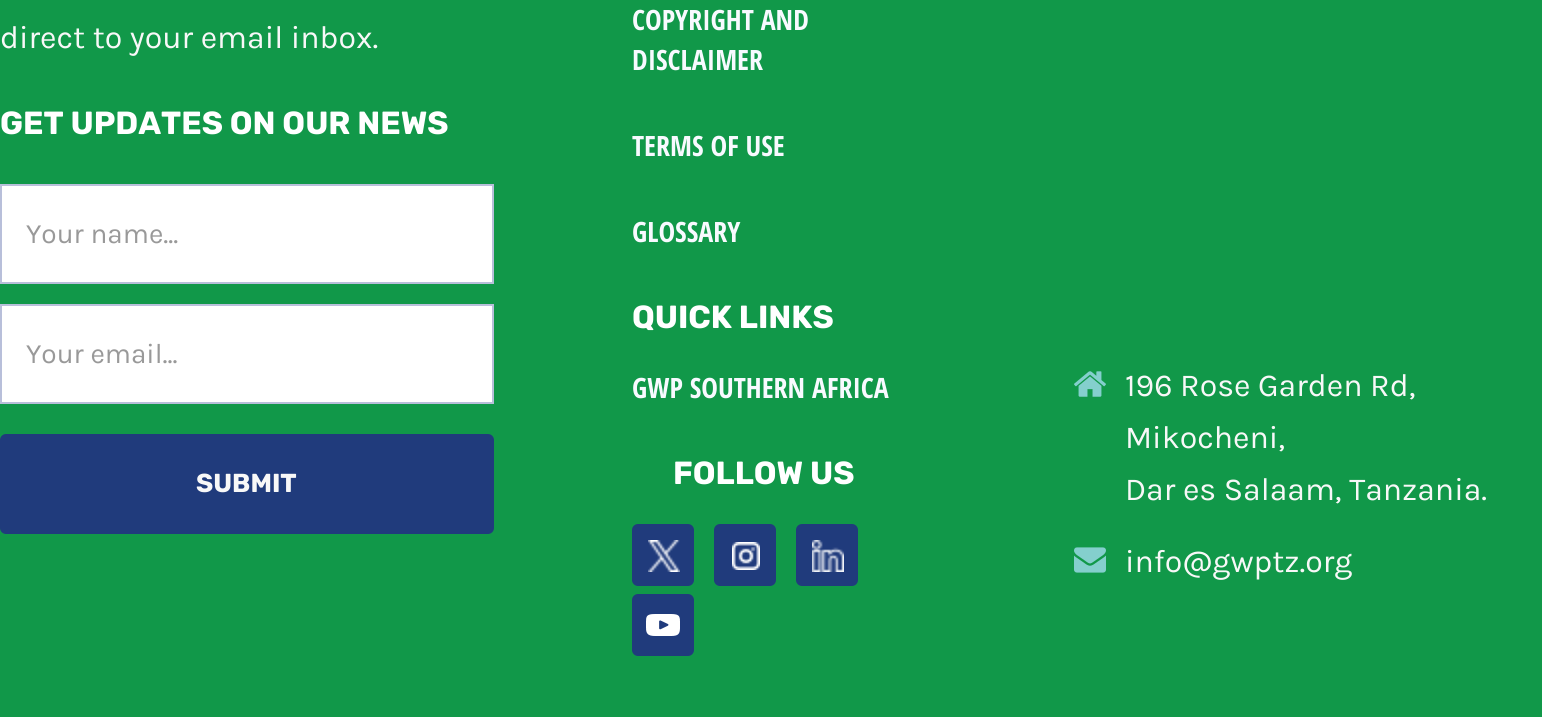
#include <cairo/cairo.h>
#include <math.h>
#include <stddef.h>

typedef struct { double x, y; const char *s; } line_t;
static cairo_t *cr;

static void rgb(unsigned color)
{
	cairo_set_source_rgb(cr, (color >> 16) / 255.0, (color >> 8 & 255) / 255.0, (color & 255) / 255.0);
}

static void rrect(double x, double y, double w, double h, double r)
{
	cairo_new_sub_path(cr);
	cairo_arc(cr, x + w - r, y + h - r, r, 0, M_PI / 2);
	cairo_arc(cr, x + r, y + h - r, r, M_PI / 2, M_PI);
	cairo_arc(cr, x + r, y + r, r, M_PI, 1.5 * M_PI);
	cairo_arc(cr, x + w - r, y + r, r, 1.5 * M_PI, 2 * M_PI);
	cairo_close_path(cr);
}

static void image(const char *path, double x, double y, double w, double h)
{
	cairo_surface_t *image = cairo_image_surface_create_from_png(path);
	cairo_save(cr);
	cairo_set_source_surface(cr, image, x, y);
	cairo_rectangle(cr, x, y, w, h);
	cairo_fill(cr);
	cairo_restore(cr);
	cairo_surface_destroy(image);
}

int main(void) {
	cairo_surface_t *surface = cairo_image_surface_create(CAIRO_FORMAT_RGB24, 1542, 717);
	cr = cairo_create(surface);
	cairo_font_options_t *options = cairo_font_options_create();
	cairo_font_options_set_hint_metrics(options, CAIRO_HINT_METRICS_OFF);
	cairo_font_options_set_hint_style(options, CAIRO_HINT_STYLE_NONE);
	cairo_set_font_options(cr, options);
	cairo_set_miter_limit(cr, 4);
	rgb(0x119849);
	cairo_paint(cr);
	rgb(0xffffff);
	cairo_rectangle(cr, 1, 185, 492, 98);
	cairo_fill_preserve(cr);
	rgb(0xb8bfda);
	cairo_stroke(cr);
	rgb(0xffffff);
	cairo_rectangle(cr, 1, 305, 492, 98);
	cairo_fill_preserve(cr);
	rgb(0xb8bfda);
	cairo_stroke(cr);
	rgb(0x203b7c);
	rrect(0, 434, 494, 100, 6);
	cairo_fill(cr);
	rrect(632, 524, 62, 62, 6);
	cairo_fill(cr);
	image("img/1.png", 648, 540, 32, 32);
	rrect(714, 524, 62, 62, 6);
	cairo_fill(cr);
	image("img/2.png", 732, 542, 28, 28);
	rrect(796, 524, 62, 62, 6);
	cairo_fill(cr);
	image("img/3.png", 812, 540, 32, 32);
	rrect(632, 594, 62, 62, 6);
	cairo_fill(cr);
	image("img/4.png", 646, 614, 34, 22);
	image("img/5.png", 1074, 371, 32, 26);
	image("img/6.png", 1074, 547, 32, 26);
	cairo_select_font_face(cr, "Karla", CAIRO_FONT_SLANT_NORMAL, CAIRO_FONT_WEIGHT_NORMAL);
	cairo_set_font_size(cr, 32);
	rgb(0xf8f8f8);
	cairo_move_to(cr, 0, 48);
	cairo_show_text(cr, "direct to your email inbox.");
	cairo_select_font_face(cr, "Rubik", CAIRO_FONT_SLANT_NORMAL, CAIRO_FONT_WEIGHT_BOLD);
	rgb(0xffffff);
	cairo_move_to(cr, 0, 134);
	cairo_show_text(cr, "GET UPDATES ON OUR NEWS");
	cairo_select_font_face(cr, "Karla", CAIRO_FONT_SLANT_NORMAL, CAIRO_FONT_WEIGHT_NORMAL);
	cairo_set_font_size(cr, 28);
	rgb(0x999999);
	cairo_move_to(cr, 26, 243);
	cairo_show_text(cr, "Your name...");
	cairo_move_to(cr, 26, 363);
	cairo_show_text(cr, "Your email...");
	cairo_select_font_face(cr, "Rubik", CAIRO_FONT_SLANT_NORMAL, CAIRO_FONT_WEIGHT_BOLD);
	cairo_set_font_size(cr, 26);
	rgb(0xf8f8f8);
	cairo_move_to(cr, 196, 492);
	cairo_show_text(cr, "SUBMIT");
	cairo_select_font_face(cr, "Open Sans Condensed", CAIRO_FONT_SLANT_NORMAL, CAIRO_FONT_WEIGHT_BOLD);
	cairo_set_font_size(cr, 28);
	rgb(0xf8faff);
	{
		static const line_t items[] = {
			{632, 30, "COPYRIGHT AND"},
			{632, 70, "DISCLAIMER"},
			{632, 156, "TERMS OF USE"},
			{632, 242, "GLOSSARY"},
		};
		for (size_t i = 0; i < sizeof items / sizeof *items; i++) {
			cairo_move_to(cr, items[i].x, items[i].y);
			cairo_show_text(cr, items[i].s);
		}
	}
	cairo_select_font_face(cr, "Rubik", CAIRO_FONT_SLANT_NORMAL, CAIRO_FONT_WEIGHT_BOLD);
	cairo_set_font_size(cr, 32);
	rgb(0xffffff);
	cairo_move_to(cr, 632, 328);
	cairo_show_text(cr, "QUICK LINKS");
	cairo_select_font_face(cr, "Open Sans Condensed", CAIRO_FONT_SLANT_NORMAL, CAIRO_FONT_WEIGHT_BOLD);
	cairo_set_font_size(cr, 28);
	rgb(0xf8faff);
	cairo_move_to(cr, 632, 398);
	cairo_show_text(cr, "GWP SOUTHERN AFRICA");
	cairo_select_font_face(cr, "Rubik", CAIRO_FONT_SLANT_NORMAL, CAIRO_FONT_WEIGHT_BOLD);
	cairo_set_font_size(cr, 32);
	rgb(0xffffff);
	cairo_move_to(cr, 673, 484);
	cairo_show_text(cr, "FOLLOW US");
	cairo_select_font_face(cr, "Karla", CAIRO_FONT_SLANT_NORMAL, CAIRO_FONT_WEIGHT_NORMAL);
	rgb(0xf8f8f8);
	{
		static const line_t items[] = {
			{1125, 396, "196 Rose Garden Rd,"},
			{1125, 448, "Mikocheni,"},
			{1125, 500, "Dar es Salaam, Tanzania."},
			{1125, 572, "info@gwptz.org"},
		};
		for (size_t i = 0; i < sizeof items / sizeof *items; i++) {
			cairo_move_to(cr, items[i].x, items[i].y);
			cairo_show_text(cr, items[i].s);
		}
	}
	cairo_surface_write_to_png(surface, "page.png");
	cairo_font_options_destroy(options);
	cairo_destroy(cr);
	cairo_surface_destroy(surface);
	return 0;
}
